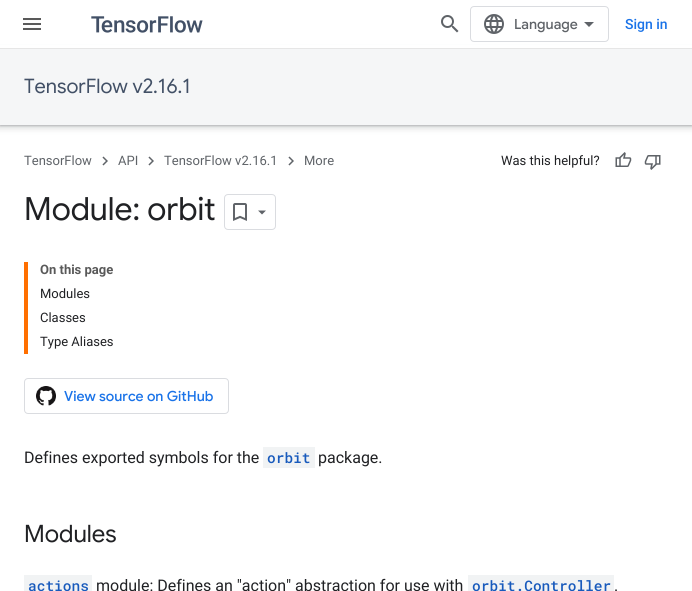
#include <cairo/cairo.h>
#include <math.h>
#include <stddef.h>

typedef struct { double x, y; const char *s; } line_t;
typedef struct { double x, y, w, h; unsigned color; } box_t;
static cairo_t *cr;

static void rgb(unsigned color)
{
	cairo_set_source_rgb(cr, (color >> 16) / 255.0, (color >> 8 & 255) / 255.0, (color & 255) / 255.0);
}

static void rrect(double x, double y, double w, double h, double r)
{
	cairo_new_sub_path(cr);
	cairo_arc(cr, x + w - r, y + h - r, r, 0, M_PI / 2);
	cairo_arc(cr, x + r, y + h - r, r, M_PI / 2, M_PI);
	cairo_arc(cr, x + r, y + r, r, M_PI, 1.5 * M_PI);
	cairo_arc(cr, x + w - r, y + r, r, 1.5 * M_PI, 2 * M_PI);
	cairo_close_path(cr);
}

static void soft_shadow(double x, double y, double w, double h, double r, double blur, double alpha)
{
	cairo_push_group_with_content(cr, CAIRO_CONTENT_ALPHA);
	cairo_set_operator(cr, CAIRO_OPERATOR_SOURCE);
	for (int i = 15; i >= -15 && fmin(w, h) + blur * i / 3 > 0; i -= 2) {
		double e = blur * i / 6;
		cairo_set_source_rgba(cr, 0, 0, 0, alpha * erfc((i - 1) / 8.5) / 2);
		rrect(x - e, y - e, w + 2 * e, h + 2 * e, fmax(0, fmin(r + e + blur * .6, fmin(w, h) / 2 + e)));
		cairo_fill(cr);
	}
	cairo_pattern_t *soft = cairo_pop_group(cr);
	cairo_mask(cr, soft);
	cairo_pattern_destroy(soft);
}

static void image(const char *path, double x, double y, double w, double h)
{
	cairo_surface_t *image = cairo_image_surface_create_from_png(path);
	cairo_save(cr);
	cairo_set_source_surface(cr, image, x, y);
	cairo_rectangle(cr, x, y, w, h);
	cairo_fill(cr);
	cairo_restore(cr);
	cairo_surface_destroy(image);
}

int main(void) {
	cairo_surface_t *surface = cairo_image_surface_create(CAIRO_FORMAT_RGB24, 692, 591);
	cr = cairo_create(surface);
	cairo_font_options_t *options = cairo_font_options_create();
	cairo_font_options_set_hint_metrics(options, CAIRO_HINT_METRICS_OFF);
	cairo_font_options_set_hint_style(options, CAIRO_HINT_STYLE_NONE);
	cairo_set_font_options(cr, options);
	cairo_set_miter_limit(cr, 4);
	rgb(0xffffff);
	cairo_paint(cr);
	rgb(0x3c4043);
	soft_shadow(-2, 49, 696, 80, 0, 3, 0.15);
	soft_shadow(0, 50, 692, 76, 0, 1, 0.3);
	rgb(0xffffff);
	cairo_rectangle(cr, 0, 45, 692, 3);
	cairo_fill(cr);
	rgb(0xe6e6e6);
	cairo_rectangle(cr, 0, 48, 692, 1);
	cairo_fill(cr);
	image("img/1.png", 23, 18, 18, 12);
	image("img/2.png", 91, 16, 112, 17);
	image("img/3.png", 441, 15, 18, 18);
	rrect(470.5, 6.5, 138, 35, 3.5);
	rgb(0xdadce0);
	cairo_set_line_width(cr, 1);
	cairo_stroke(cr);
	image("img/4.png", 484, 14, 20, 20);
	rgb(0x5f6368);
	cairo_new_path(cr);
	cairo_move_to(cr, 589, 27);
	cairo_line_to(cr, 584, 22);
	cairo_line_to(cr, 594, 22);
	cairo_close_path(cr);
	cairo_fill(cr);
	rgb(0xf5f6f7);
	cairo_rectangle(cr, 0, 49, 692, 76);
	cairo_fill(cr);
	image("img/5.png", 102, 156, 6, 10);
	image("img/5.png", 148, 156, 6, 10);
	image("img/5.png", 288, 156, 6, 10);
	image("img/6.png", 615, 152, 17, 15);
	image("img/7.png", 644, 155, 17, 15);
	rrect(224.5, 194.5, 51, 35, 3.5);
	rgb(0xdadce0);
	cairo_stroke(cr);
	image("img/8.png", 233, 203, 14, 18);
	rgb(0x5f6368);
	cairo_new_path(cr);
	cairo_move_to(cr, 258, 210.5);
	cairo_line_to(cr, 266, 210.5);
	cairo_line_to(cr, 262, 214.5);
	cairo_close_path(cr);
	cairo_fill(cr);
	rgb(0xff6f00);
	cairo_rectangle(cr, 24, 262, 4, 92);
	cairo_fill(cr);
	rrect(24.5, 378.5, 204, 35, 3.5);
	rgb(0xdadce0);
	cairo_stroke(cr);
	image("img/9.png", 36, 386, 20, 20);
	{
		static const box_t items[] = {
			{263, 447, 52, 21, 0xf1f3f4},
			{24, 575, 68, 16, 0xf1f3f4},
			{468, 575, 146, 16, 0xf1f3f4},
		};
		for (size_t i = 0; i < sizeof items / sizeof *items; i++) {
			rgb(items[i].color);
			cairo_rectangle(cr, items[i].x, items[i].y, items[i].w, items[i].h);
			cairo_fill(cr);
		}
	}
	cairo_select_font_face(cr, "Google Sans Medium", CAIRO_FONT_SLANT_NORMAL, CAIRO_FONT_WEIGHT_NORMAL);
	cairo_set_font_size(cr, 14);
	rgb(0x5f6368);
	cairo_move_to(cr, 514, 29);
	cairo_show_text(cr, "Language");
	cairo_select_font_face(cr, "Roboto Medium", CAIRO_FONT_SLANT_NORMAL, CAIRO_FONT_WEIGHT_NORMAL);
	rgb(0x1a73e8);
	cairo_move_to(cr, 625, 29);
	cairo_show_text(cr, "Sign in");
	cairo_select_font_face(cr, "Google Sans", CAIRO_FONT_SLANT_NORMAL, CAIRO_FONT_WEIGHT_NORMAL);
	cairo_set_font_size(cr, 20);
	rgb(0x425066);
	cairo_move_to(cr, 24, 93);
	cairo_show_text(cr, "TensorFlow v2.16.1");
	cairo_select_font_face(cr, "Roboto", CAIRO_FONT_SLANT_NORMAL, CAIRO_FONT_WEIGHT_NORMAL);
	cairo_set_font_size(cr, 13);
	rgb(0x5f6368);
	{
		static const line_t items[] = {
			{24, 165, "TensorFlow"},
			{118, 165, "API"},
			{164, 165, "TensorFlow v2.16.1"},
			{304, 165, "More"},
		};
		for (size_t i = 0; i < sizeof items / sizeof *items; i++) {
			cairo_move_to(cr, items[i].x, items[i].y);
			cairo_show_text(cr, items[i].s);
		}
	}
	rgb(0x202124);
	cairo_move_to(cr, 501, 165);
	cairo_show_text(cr, "Was this helpful?");
	cairo_select_font_face(cr, "Google Sans", CAIRO_FONT_SLANT_NORMAL, CAIRO_FONT_WEIGHT_NORMAL);
	cairo_set_font_size(cr, 32);
	cairo_move_to(cr, 24, 220);
	cairo_show_text(cr, "Module: orbit");
	cairo_select_font_face(cr, "Roboto", CAIRO_FONT_SLANT_NORMAL, CAIRO_FONT_WEIGHT_BOLD);
	cairo_set_font_size(cr, 13);
	rgb(0x595959);
	cairo_move_to(cr, 40, 274);
	cairo_show_text(cr, "On this page");
	cairo_select_font_face(cr, "Roboto", CAIRO_FONT_SLANT_NORMAL, CAIRO_FONT_WEIGHT_NORMAL);
	rgb(0x202124);
	{
		static const line_t items[] = {
			{40, 298, "Modules"},
			{40, 322, "Classes"},
			{40, 346, "Type Aliases"},
		};
		for (size_t i = 0; i < sizeof items / sizeof *items; i++) {
			cairo_move_to(cr, items[i].x, items[i].y);
			cairo_show_text(cr, items[i].s);
		}
	}
	cairo_select_font_face(cr, "Google Sans Medium", CAIRO_FONT_SLANT_NORMAL, CAIRO_FONT_WEIGHT_NORMAL);
	cairo_set_font_size(cr, 14);
	rgb(0x1a73e8);
	cairo_move_to(cr, 64, 401);
	cairo_show_text(cr, "View source on GitHub");
	cairo_select_font_face(cr, "Roboto", CAIRO_FONT_SLANT_NORMAL, CAIRO_FONT_WEIGHT_NORMAL);
	cairo_set_font_size(cr, 16);
	rgb(0x202124);
	cairo_move_to(cr, 24, 463);
	cairo_show_text(cr, "Defines exported symbols for the");
	cairo_select_font_face(cr, "Roboto Mono Medium", CAIRO_FONT_SLANT_NORMAL, CAIRO_FONT_WEIGHT_NORMAL);
	cairo_set_font_size(cr, 14.5);
	rgb(0x185abc);
	cairo_move_to(cr, 267, 463);
	cairo_show_text(cr, "orbit");
	cairo_select_font_face(cr, "Roboto", CAIRO_FONT_SLANT_NORMAL, CAIRO_FONT_WEIGHT_NORMAL);
	cairo_set_font_size(cr, 16);
	rgb(0x202124);
	cairo_move_to(cr, 318, 463);
	cairo_show_text(cr, "package.");
	cairo_select_font_face(cr, "Google Sans", CAIRO_FONT_SLANT_NORMAL, CAIRO_FONT_WEIGHT_NORMAL);
	cairo_set_font_size(cr, 24);
	cairo_move_to(cr, 24, 542);
	cairo_show_text(cr, "Modules");
	cairo_select_font_face(cr, "Roboto Mono Medium", CAIRO_FONT_SLANT_NORMAL, CAIRO_FONT_WEIGHT_NORMAL);
	cairo_set_font_size(cr, 14.5);
	rgb(0x185abc);
	cairo_move_to(cr, 28, 591);
	cairo_show_text(cr, "actions");
	cairo_select_font_face(cr, "Roboto", CAIRO_FONT_SLANT_NORMAL, CAIRO_FONT_WEIGHT_NORMAL);
	cairo_set_font_size(cr, 16);
	rgb(0x202124);
	cairo_move_to(cr, 96, 591);
	cairo_show_text(cr, "module: Defines an \"action\" abstraction for use with");
	cairo_select_font_face(cr, "Roboto Mono Medium", CAIRO_FONT_SLANT_NORMAL, CAIRO_FONT_WEIGHT_NORMAL);
	cairo_set_font_size(cr, 14.5);
	rgb(0x185abc);
	cairo_move_to(cr, 472, 591);
	cairo_show_text(cr, "orbit.Controller");
	cairo_select_font_face(cr, "Roboto", CAIRO_FONT_SLANT_NORMAL, CAIRO_FONT_WEIGHT_NORMAL);
	cairo_set_font_size(cr, 16);
	rgb(0x202124);
	cairo_move_to(cr, 614, 591);
	cairo_show_text(cr, ".");
	cairo_surface_write_to_png(surface, "page.png");
	cairo_font_options_destroy(options);
	cairo_destroy(cr);
	cairo_surface_destroy(surface);
	return 0;
}
